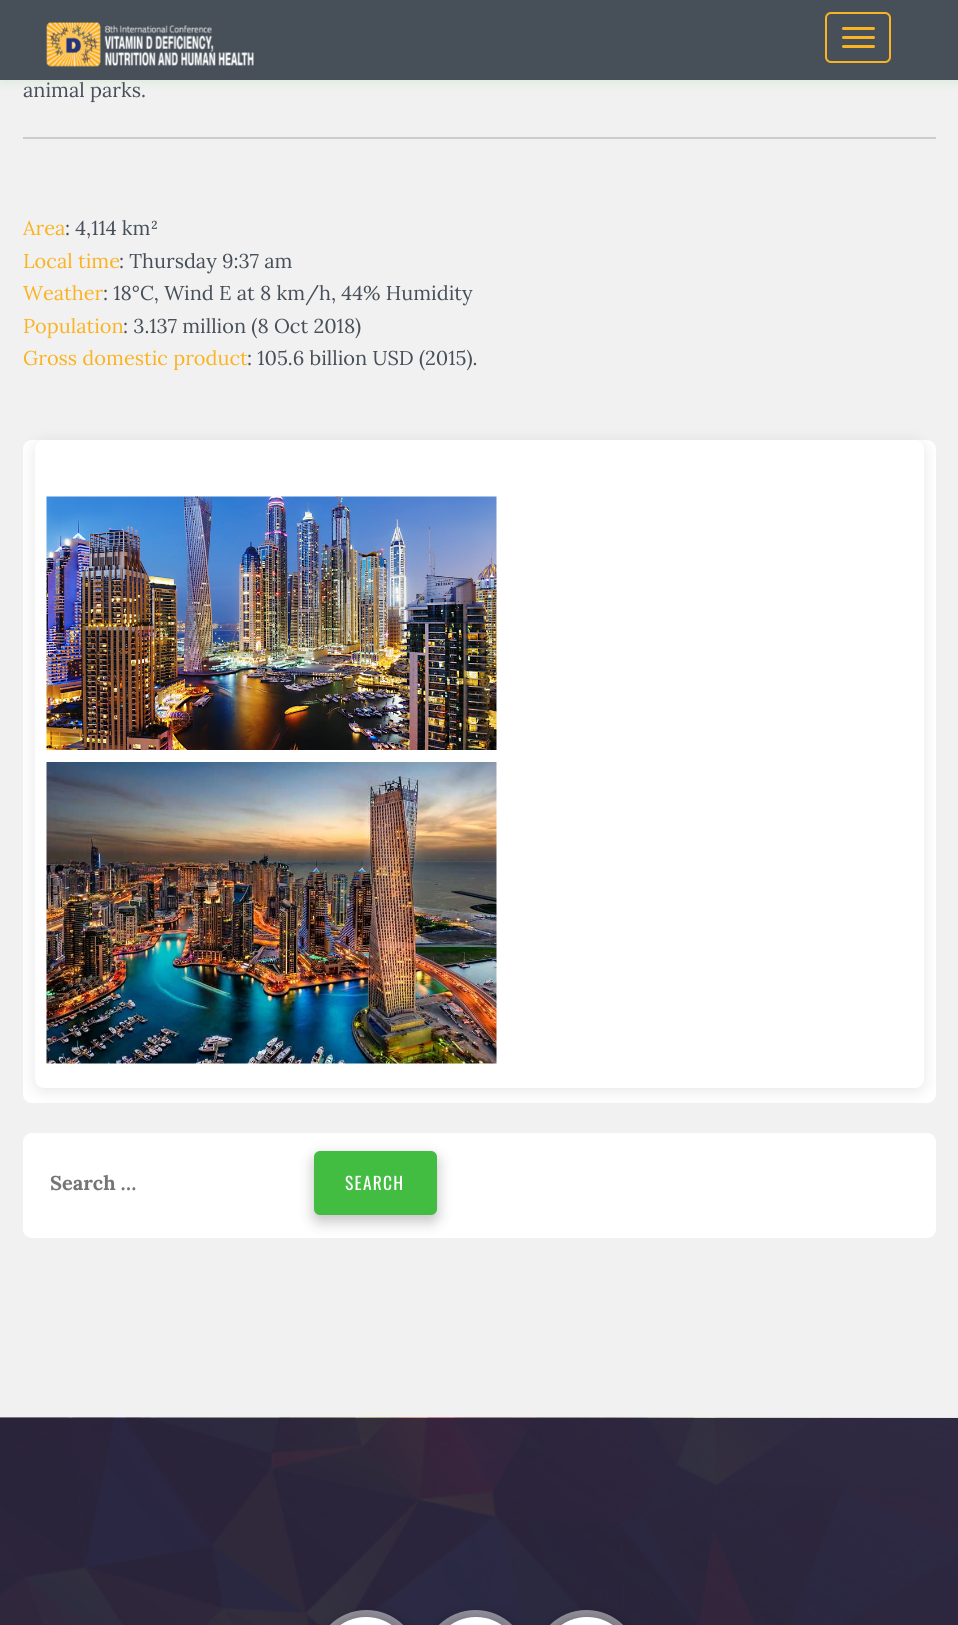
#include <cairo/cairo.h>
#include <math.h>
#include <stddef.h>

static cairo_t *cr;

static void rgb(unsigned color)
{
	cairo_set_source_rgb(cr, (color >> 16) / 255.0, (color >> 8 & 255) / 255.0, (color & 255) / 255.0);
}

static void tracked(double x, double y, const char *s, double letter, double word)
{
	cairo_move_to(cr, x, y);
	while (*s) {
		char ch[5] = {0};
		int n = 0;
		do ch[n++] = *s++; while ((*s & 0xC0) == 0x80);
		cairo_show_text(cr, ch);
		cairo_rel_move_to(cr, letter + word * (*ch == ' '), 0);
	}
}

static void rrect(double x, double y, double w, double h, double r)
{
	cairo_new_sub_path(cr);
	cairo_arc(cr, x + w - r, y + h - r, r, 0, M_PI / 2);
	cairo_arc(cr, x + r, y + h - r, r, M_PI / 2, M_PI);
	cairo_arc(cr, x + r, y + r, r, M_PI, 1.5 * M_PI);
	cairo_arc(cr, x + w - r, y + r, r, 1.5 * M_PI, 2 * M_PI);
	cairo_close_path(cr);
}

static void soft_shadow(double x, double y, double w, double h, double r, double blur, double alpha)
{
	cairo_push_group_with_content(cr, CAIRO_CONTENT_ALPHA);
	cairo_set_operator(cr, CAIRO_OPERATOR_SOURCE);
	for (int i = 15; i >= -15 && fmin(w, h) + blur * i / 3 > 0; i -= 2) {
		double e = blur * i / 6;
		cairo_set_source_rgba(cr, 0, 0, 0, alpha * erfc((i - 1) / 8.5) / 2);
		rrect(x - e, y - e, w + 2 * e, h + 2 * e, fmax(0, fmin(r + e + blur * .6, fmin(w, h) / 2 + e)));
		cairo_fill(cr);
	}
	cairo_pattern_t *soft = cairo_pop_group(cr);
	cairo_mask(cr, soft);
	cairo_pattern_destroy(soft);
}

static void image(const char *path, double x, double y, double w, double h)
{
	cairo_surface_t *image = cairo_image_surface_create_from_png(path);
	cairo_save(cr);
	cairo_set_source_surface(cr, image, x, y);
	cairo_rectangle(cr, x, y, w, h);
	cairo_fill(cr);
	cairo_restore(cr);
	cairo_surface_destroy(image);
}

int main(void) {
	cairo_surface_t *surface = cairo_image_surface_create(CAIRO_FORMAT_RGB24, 958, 1625);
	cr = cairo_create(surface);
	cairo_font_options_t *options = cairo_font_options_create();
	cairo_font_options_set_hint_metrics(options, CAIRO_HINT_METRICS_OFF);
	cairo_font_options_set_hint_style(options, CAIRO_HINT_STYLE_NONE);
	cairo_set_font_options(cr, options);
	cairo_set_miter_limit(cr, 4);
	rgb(0xf1f1f1);
	cairo_paint(cr);
	cairo_save(cr);
	cairo_set_fill_rule(cr, CAIRO_FILL_RULE_EVEN_ODD);
	cairo_new_path(cr);
	cairo_move_to(cr, 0, 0);
	cairo_line_to(cr, 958, 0);
	cairo_line_to(cr, 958, 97);
	cairo_line_to(cr, 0, 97);
	cairo_close_path(cr);
	cairo_move_to(cr, 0, 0);
	cairo_line_to(cr, 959, 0);
	cairo_line_to(cr, 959, 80);
	cairo_line_to(cr, 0, 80);
	cairo_close_path(cr);
	cairo_clip(cr);
	rgb(0x42bd41);
	soft_shadow(0, 5, 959, 79, 0, 4, 0.1);
	cairo_restore(cr);
	cairo_set_source_rgba(cr, 0.204, 0.239, 0.278, 0.9);
	cairo_rectangle(cr, 0, 0, 958, 80);
	cairo_fill(cr);
	image("img/1.png", 46, 22, 208, 45);
	rrect(826, 13, 64, 49, 5);
	rgb(0xfab322);
	cairo_stroke(cr);
	rrect(842, 27, 33, 3, 1.5);
	cairo_fill(cr);
	rrect(842, 36, 33, 3, 1.5);
	cairo_fill(cr);
	rrect(842, 45, 33, 3, 1.5);
	cairo_fill(cr);
	rgb(0xcccccc);
	cairo_rectangle(cr, 23, 137, 913, 2);
	cairo_fill(cr);
	rgb(0xffffff);
	rrect(23, 440, 913, 663, 9);
	cairo_fill(cr);
	rgb(0x000000);
	soft_shadow(35, 443, 889, 648, 9, 7.5, 0.1);
	rgb(0xffffff);
	rrect(35, 440, 889, 648, 9);
	cairo_fill(cr);
	image("img/2.png", 46, 496, 451, 254);
	image("img/3.png", 46, 762, 451, 302);
	rrect(23, 1133, 913, 105, 9);
	cairo_fill(cr);
	rgb(0x000000);
	soft_shadow(314, 1157, 123, 64, 6, 7.5, 0.25);
	rgb(0x42bd41);
	rrect(314, 1151, 123, 64, 6);
	cairo_fill(cr);
	rgb(0x2f2a42);
	cairo_rectangle(cr, 0, 1418, 958, 207);
	cairo_fill(cr);
	image("img/4.png", 0, 1417, 958, 208);
	cairo_set_source_rgba(cr, 1, 1, 1, 0.5);
	rrect(314, 1610, 105, 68, 52.5);
	cairo_fill(cr);
	rgb(0x000000);
	soft_shadow(321, 1617, 90, 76, 45, 7.5, 0.25);
	rgb(0xffffff);
	rrect(321, 1617, 90, 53, 45);
	cairo_fill(cr);
	rgb(0x9594a1);
	rrect(423, 1610, 105, 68, 52.5);
	cairo_fill(cr);
	rgb(0x000000);
	soft_shadow(431, 1617, 90, 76, 45, 7.5, 0.25);
	rgb(0xffffff);
	rrect(431, 1617, 90, 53, 45);
	cairo_fill(cr);
	cairo_set_source_rgba(cr, 1, 1, 1, 0.5);
	rrect(534, 1610, 105, 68, 52.5);
	cairo_fill(cr);
	rgb(0x000000);
	soft_shadow(542, 1617, 90, 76, 45, 7.5, 0.25);
	rgb(0xffffff);
	rrect(542, 1617, 90, 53, 45);
	cairo_fill(cr);
	cairo_select_font_face(cr, "Lora", CAIRO_FONT_SLANT_NORMAL, CAIRO_FONT_WEIGHT_NORMAL);
	cairo_set_font_size(cr, 20);
	rgb(0x474f58);
	cairo_move_to(cr, 23, 97);
	cairo_show_text(cr, "animal parks.");
	rgb(0xfab322);
	cairo_move_to(cr, 23, 235);
	cairo_show_text(cr, "Area");
	rgb(0x474f58);
	cairo_move_to(cr, 65, 235);
	cairo_show_text(cr, ": 4,114 km²");
	rgb(0xfab322);
	cairo_move_to(cr, 23, 268);
	cairo_show_text(cr, "Local time");
	rgb(0x474f58);
	cairo_move_to(cr, 119, 268);
	cairo_show_text(cr, ": Thursday 9:37 am");
	rgb(0xfab322);
	cairo_move_to(cr, 23, 300);
	cairo_show_text(cr, "Weather");
	rgb(0x474f58);
	cairo_move_to(cr, 103, 300);
	cairo_show_text(cr, ": 18°C, Wind E at 8 km/h, 44% Humidity");
	rgb(0xfab322);
	cairo_move_to(cr, 23, 333);
	cairo_show_text(cr, "Population");
	rgb(0x474f58);
	cairo_move_to(cr, 123, 333);
	cairo_show_text(cr, ": 3.137 million (8 Oct 2018)");
	rgb(0xfab322);
	cairo_move_to(cr, 23, 365);
	cairo_show_text(cr, "Gross domestic product");
	rgb(0x474f58);
	cairo_move_to(cr, 247, 365);
	cairo_show_text(cr, ": 105.6 billion USD (2015).");
	cairo_select_font_face(cr, "Lora", CAIRO_FONT_SLANT_NORMAL, CAIRO_FONT_WEIGHT_BOLD);
	rgb(0x757575);
	cairo_move_to(cr, 50, 1190);
	cairo_show_text(cr, "Search …");
	cairo_select_font_face(cr, "Oswald", CAIRO_FONT_SLANT_NORMAL, CAIRO_FONT_WEIGHT_NORMAL);
	cairo_set_font_size(cr, 17.5);
	rgb(0xffffff);
	tracked(345, 1190, "SEARCH", 1.25, 0);
	cairo_surface_write_to_png(surface, "page.png");
	cairo_font_options_destroy(options);
	cairo_destroy(cr);
	cairo_surface_destroy(surface);
	return 0;
}
